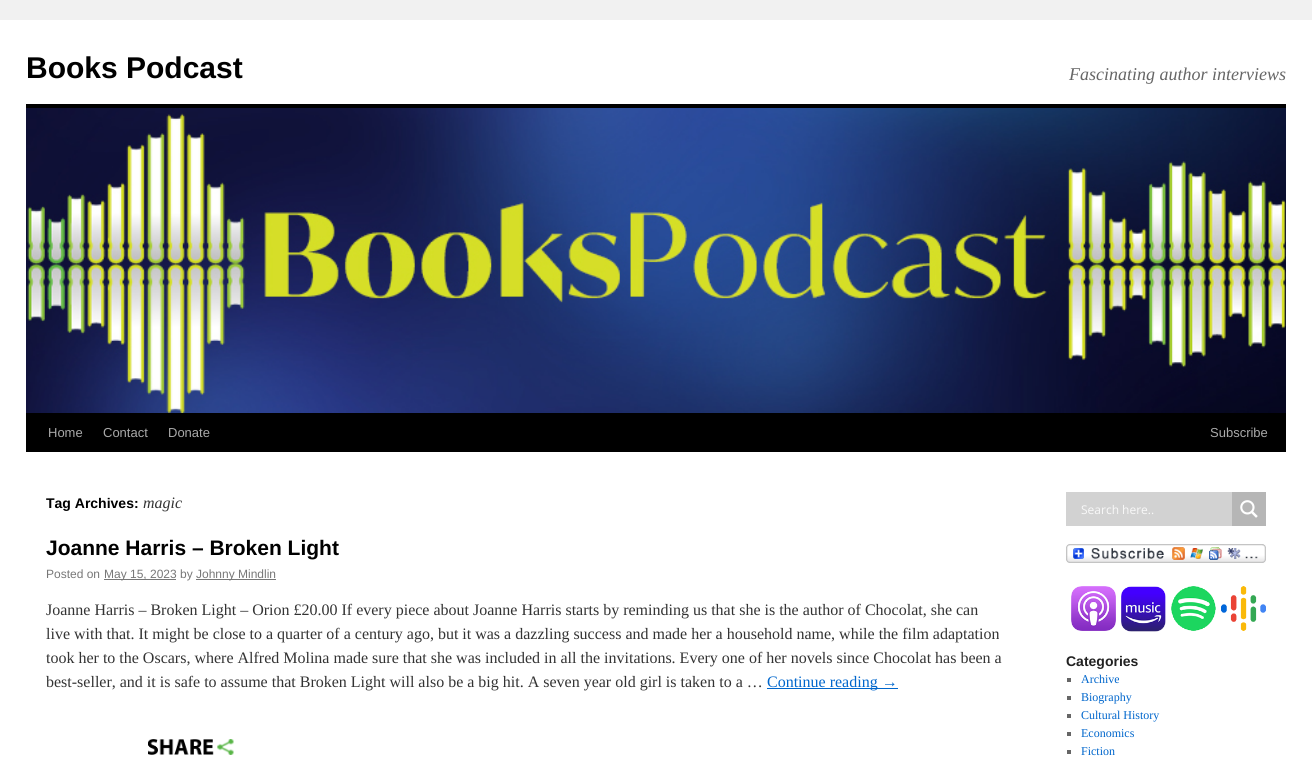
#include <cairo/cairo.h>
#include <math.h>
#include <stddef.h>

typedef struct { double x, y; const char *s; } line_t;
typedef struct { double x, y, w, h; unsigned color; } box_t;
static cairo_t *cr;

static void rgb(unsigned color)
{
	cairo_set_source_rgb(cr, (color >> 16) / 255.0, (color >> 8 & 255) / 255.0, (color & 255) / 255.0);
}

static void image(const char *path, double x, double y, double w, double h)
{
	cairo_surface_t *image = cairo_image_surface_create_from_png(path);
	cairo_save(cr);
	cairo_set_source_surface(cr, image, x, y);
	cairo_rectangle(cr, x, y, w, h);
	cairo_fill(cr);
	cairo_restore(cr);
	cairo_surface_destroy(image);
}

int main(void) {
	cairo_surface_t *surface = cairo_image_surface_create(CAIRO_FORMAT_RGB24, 1312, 762);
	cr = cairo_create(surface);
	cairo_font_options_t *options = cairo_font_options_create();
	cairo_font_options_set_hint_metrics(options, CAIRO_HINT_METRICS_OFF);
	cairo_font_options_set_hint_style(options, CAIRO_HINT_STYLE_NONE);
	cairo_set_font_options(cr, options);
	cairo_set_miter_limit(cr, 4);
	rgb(0xf1f1f1);
	cairo_paint(cr);
	{
		static const box_t items[] = {
			{0, 20, 1312, 742, 0xffffff},
			{26, 104, 1260, 4, 0x000000},
			{26, 413, 1260, 39, 0x000000},
		};
		for (size_t i = 0; i < sizeof items / sizeof *items; i++) {
			rgb(items[i].color);
			cairo_rectangle(cr, items[i].x, items[i].y, items[i].w, items[i].h);
			cairo_fill(cr);
		}
	}
	image("img/1.png", 26, 108, 1260, 305);
	{
		static const box_t items[] = {
			{104, 579, 72, 1, 0x777777},
			{196, 579, 80, 1, 0x777777},
			{767, 688, 131, 1, 0x0066cc},
		};
		for (size_t i = 0; i < sizeof items / sizeof *items; i++) {
			rgb(items[i].color);
			cairo_rectangle(cr, items[i].x, items[i].y, items[i].w, items[i].h);
			cairo_fill(cr);
		}
	}
	image("img/2.png", 148, 739, 86, 16);
	rgb(0xd2d2d2);
	cairo_rectangle(cr, 1066, 492, 166, 34);
	cairo_fill(cr);
	rgb(0xb6b6b6);
	cairo_rectangle(cr, 1232, 492, 34, 34);
	cairo_fill(cr);
	image("img/3.png", 1240, 500, 18, 18);
	image("img/4.png", 1066, 544, 200, 19);
	image("img/5.png", 1071, 586, 45, 45);
	image("img/6.png", 1121, 586, 45, 46);
	image("img/7.png", 1171, 586, 45, 45);
	image("img/8.png", 1221, 586, 45, 45);
	{
		static const box_t items[] = {
			{1067, 678, 4, 4, 0x666666},
			{1067, 696, 4, 4, 0x666666},
			{1067, 714, 4, 4, 0x666666},
			{1067, 732, 4, 4, 0x666666},
			{1067, 750, 4, 4, 0x666666},
		};
		for (size_t i = 0; i < sizeof items / sizeof *items; i++) {
			rgb(items[i].color);
			cairo_rectangle(cr, items[i].x, items[i].y, items[i].w, items[i].h);
			cairo_fill(cr);
		}
	}
	cairo_select_font_face(cr, "Liberation Sans", CAIRO_FONT_SLANT_NORMAL, CAIRO_FONT_WEIGHT_BOLD);
	cairo_set_font_size(cr, 30);
	rgb(0x000000);
	cairo_move_to(cr, 26, 78);
	cairo_show_text(cr, "Books Podcast");
	cairo_select_font_face(cr, "Liberation Serif", CAIRO_FONT_SLANT_ITALIC, CAIRO_FONT_WEIGHT_NORMAL);
	cairo_set_font_size(cr, 18);
	rgb(0x666666);
	cairo_move_to(cr, 1069, 80);
	cairo_show_text(cr, "Fascinating author interviews");
	cairo_select_font_face(cr, "Liberation Sans", CAIRO_FONT_SLANT_NORMAL, CAIRO_FONT_WEIGHT_NORMAL);
	cairo_set_font_size(cr, 13);
	rgb(0xaaaaaa);
	{
		static const line_t items[] = {
			{48, 437, "Home"},
			{103, 437, "Contact"},
			{168, 437, "Donate"},
			{1210, 437, "Subscribe"},
		};
		for (size_t i = 0; i < sizeof items / sizeof *items; i++) {
			cairo_move_to(cr, items[i].x, items[i].y);
			cairo_show_text(cr, items[i].s);
		}
	}
	cairo_select_font_face(cr, "Liberation Sans", CAIRO_FONT_SLANT_NORMAL, CAIRO_FONT_WEIGHT_BOLD);
	cairo_set_font_size(cr, 14);
	rgb(0x000000);
	cairo_move_to(cr, 46, 508);
	cairo_show_text(cr, "Tag Archives:");
	cairo_select_font_face(cr, "Liberation Serif", CAIRO_FONT_SLANT_ITALIC, CAIRO_FONT_WEIGHT_NORMAL);
	cairo_set_font_size(cr, 16);
	rgb(0x333333);
	cairo_move_to(cr, 143, 508);
	cairo_show_text(cr, "magic");
	cairo_select_font_face(cr, "Liberation Sans", CAIRO_FONT_SLANT_NORMAL, CAIRO_FONT_WEIGHT_BOLD);
	cairo_set_font_size(cr, 21);
	rgb(0x000000);
	cairo_move_to(cr, 46, 555);
	cairo_show_text(cr, "Joanne Harris – Broken Light");
	cairo_select_font_face(cr, "Liberation Sans", CAIRO_FONT_SLANT_NORMAL, CAIRO_FONT_WEIGHT_NORMAL);
	cairo_set_font_size(cr, 12);
	rgb(0x777777);
	{
		static const line_t items[] = {
			{46, 578, "Posted on"},
			{104, 578, "May 15, 2023 by"},
			{196, 578, "Johnny Mindlin"},
		};
		for (size_t i = 0; i < sizeof items / sizeof *items; i++) {
			cairo_move_to(cr, items[i].x, items[i].y);
			cairo_show_text(cr, items[i].s);
		}
	}
	cairo_select_font_face(cr, "Liberation Serif", CAIRO_FONT_SLANT_NORMAL, CAIRO_FONT_WEIGHT_NORMAL);
	cairo_set_font_size(cr, 16);
	rgb(0x333333);
	{
		static const line_t items[] = {
			{46, 615, "Joanne Harris – Broken Light – Orion £20.00 If every piece about Joanne Harris starts by reminding us that she is the author of Chocolat, she can"},
			{46, 639, "live with that. It might be close to a quarter of a century ago, but it was a dazzling success and made her a household name, while the film adaptation"},
			{46, 663, "took her to the Oscars, where Alfred Molina made sure that she was included in all the invitations. Every one of her novels since Chocolat has been a"},
			{46, 687, "best-seller, and it is safe to assume that Broken Light will also be a big hit. A seven year old girl is taken to a …"},
		};
		for (size_t i = 0; i < sizeof items / sizeof *items; i++) {
			cairo_move_to(cr, items[i].x, items[i].y);
			cairo_show_text(cr, items[i].s);
		}
	}
	rgb(0x0066cc);
	cairo_move_to(cr, 767, 687);
	cairo_show_text(cr, "Continue reading →");
	cairo_select_font_face(cr, "Open Sans", CAIRO_FONT_SLANT_NORMAL, CAIRO_FONT_WEIGHT_NORMAL);
	cairo_set_font_size(cr, 12);
	rgb(0xf8f8f8);
	cairo_move_to(cr, 1081, 514);
	cairo_show_text(cr, "Search here..");
	cairo_select_font_face(cr, "Liberation Sans", CAIRO_FONT_SLANT_NORMAL, CAIRO_FONT_WEIGHT_BOLD);
	cairo_set_font_size(cr, 14);
	rgb(0x222222);
	cairo_move_to(cr, 1066, 666);
	cairo_show_text(cr, "Categories");
	cairo_select_font_face(cr, "Liberation Serif", CAIRO_FONT_SLANT_NORMAL, CAIRO_FONT_WEIGHT_NORMAL);
	cairo_set_font_size(cr, 12);
	rgb(0x0066cc);
	{
		static const line_t items[] = {
			{1081, 683, "Archive"},
			{1081, 701, "Biography"},
			{1081, 719, "Cultural History"},
			{1081, 737, "Economics"},
			{1081, 755, "Fiction"},
		};
		for (size_t i = 0; i < sizeof items / sizeof *items; i++) {
			cairo_move_to(cr, items[i].x, items[i].y);
			cairo_show_text(cr, items[i].s);
		}
	}
	cairo_surface_write_to_png(surface, "page.png");
	cairo_font_options_destroy(options);
	cairo_destroy(cr);
	cairo_surface_destroy(surface);
	return 0;
}
